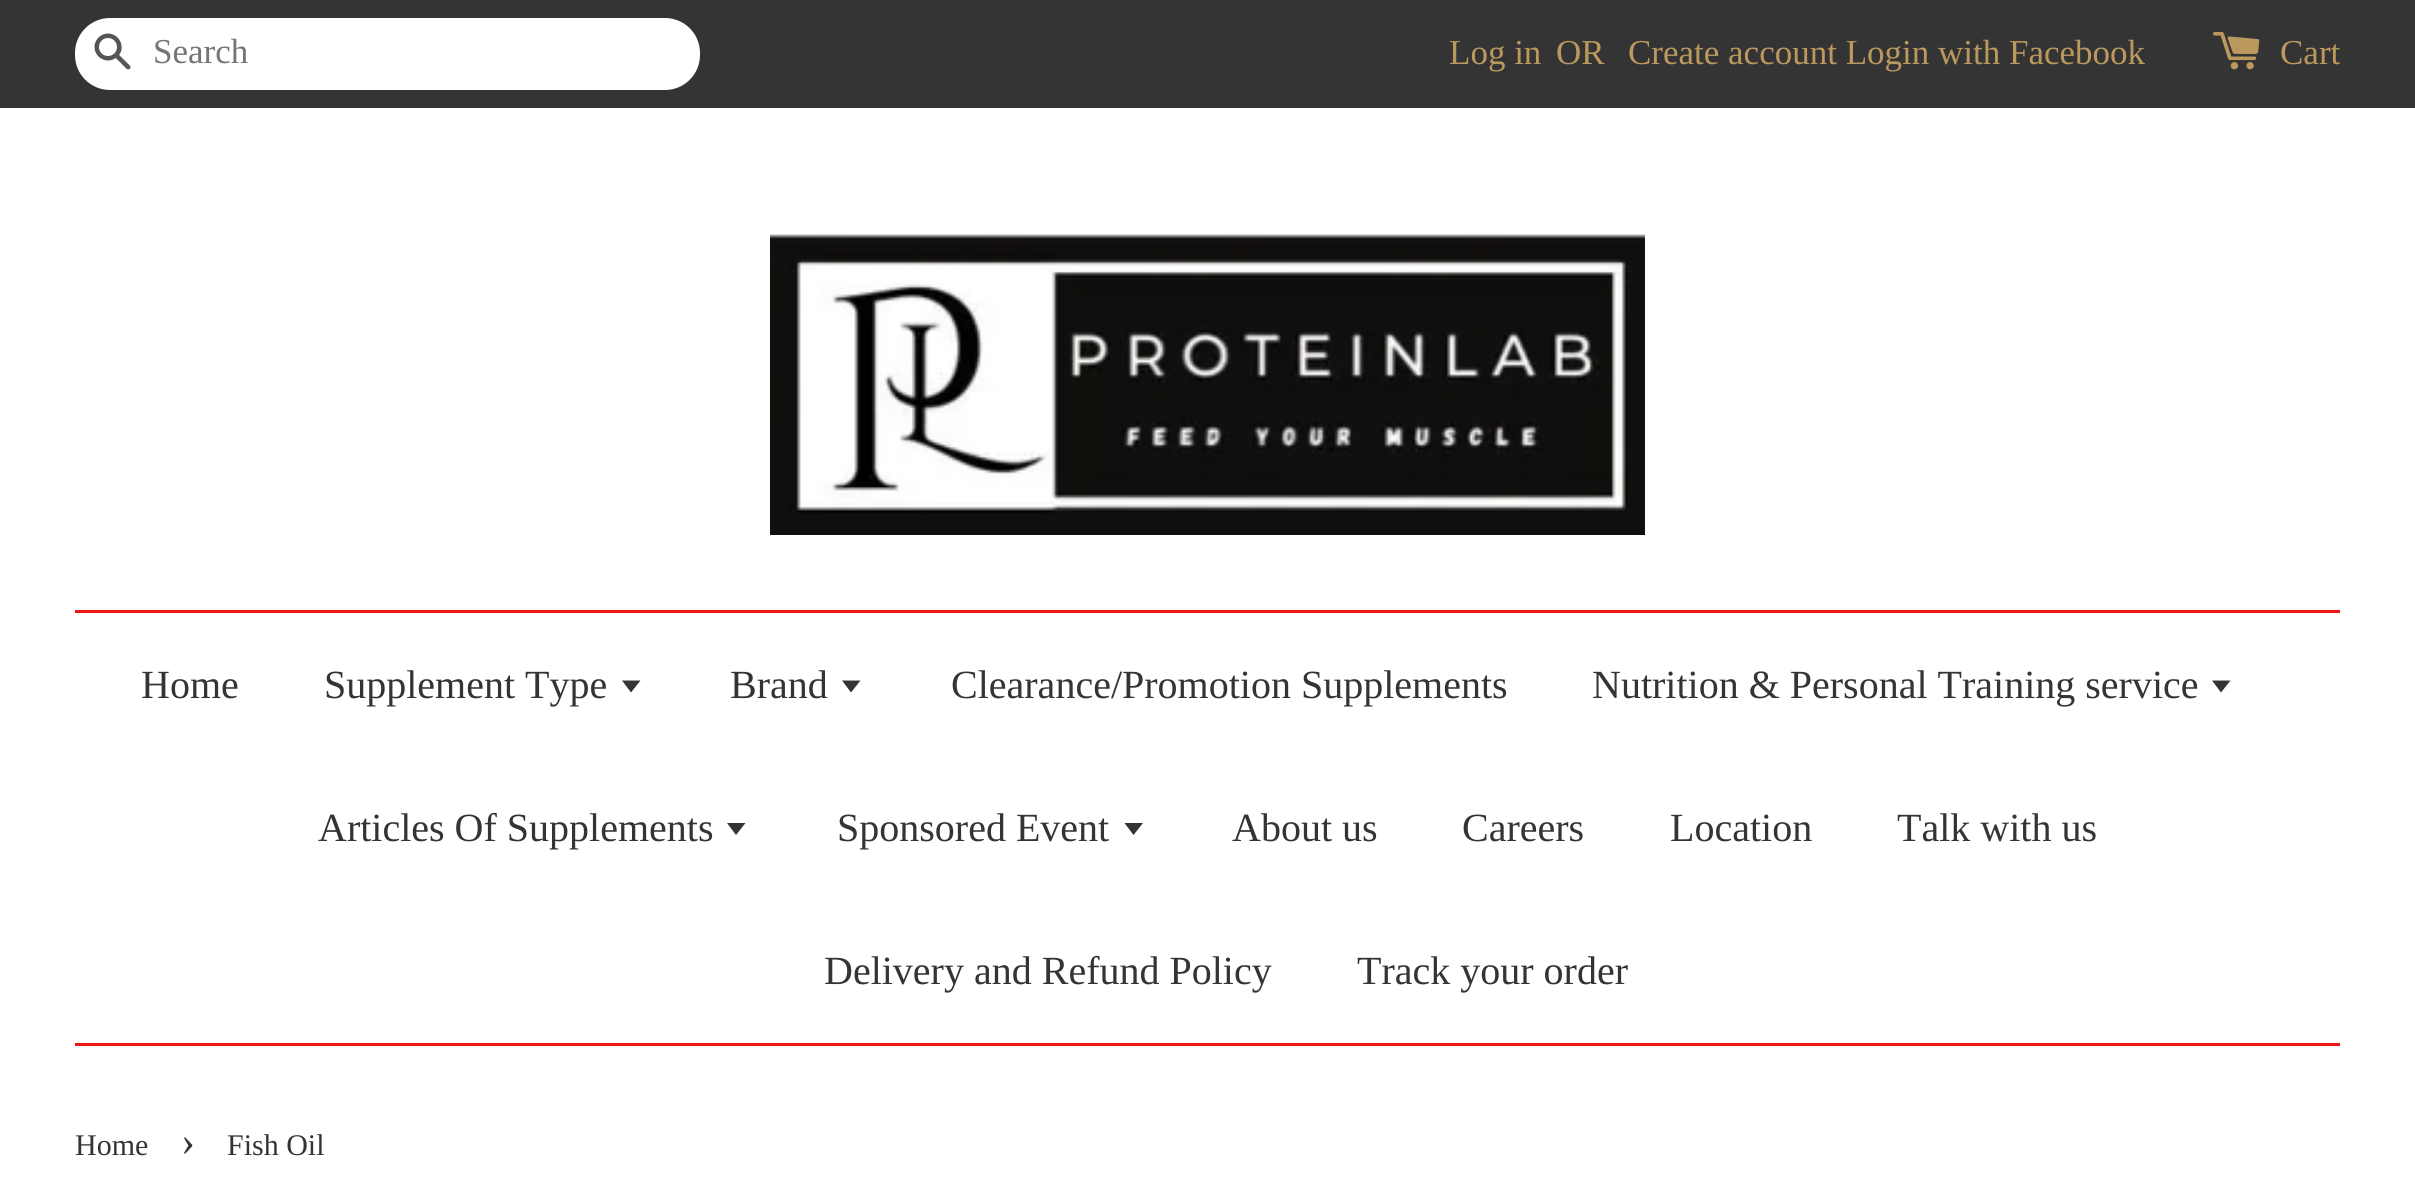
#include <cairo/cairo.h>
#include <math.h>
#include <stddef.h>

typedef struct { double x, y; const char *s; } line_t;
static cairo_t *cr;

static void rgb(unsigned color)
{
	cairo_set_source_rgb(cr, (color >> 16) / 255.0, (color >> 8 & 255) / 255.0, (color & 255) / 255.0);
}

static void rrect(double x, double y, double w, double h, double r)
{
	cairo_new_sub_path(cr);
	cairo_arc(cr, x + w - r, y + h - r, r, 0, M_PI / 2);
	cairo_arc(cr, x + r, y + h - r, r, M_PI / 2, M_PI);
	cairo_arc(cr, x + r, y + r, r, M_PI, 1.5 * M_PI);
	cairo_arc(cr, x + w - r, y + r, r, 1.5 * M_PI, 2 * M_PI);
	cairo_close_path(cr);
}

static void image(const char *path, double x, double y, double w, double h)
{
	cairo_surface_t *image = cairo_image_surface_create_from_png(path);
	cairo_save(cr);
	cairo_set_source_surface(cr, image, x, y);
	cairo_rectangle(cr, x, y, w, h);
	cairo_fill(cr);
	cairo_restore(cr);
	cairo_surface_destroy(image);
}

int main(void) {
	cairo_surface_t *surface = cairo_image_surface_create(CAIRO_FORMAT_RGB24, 2415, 1185);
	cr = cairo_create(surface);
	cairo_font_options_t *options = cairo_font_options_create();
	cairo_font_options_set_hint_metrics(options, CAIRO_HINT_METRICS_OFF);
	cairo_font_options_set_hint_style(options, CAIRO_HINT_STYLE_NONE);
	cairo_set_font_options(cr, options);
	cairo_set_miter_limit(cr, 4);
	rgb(0xffffff);
	cairo_paint(cr);
	rgb(0x343434);
	cairo_rectangle(cr, 0, 0, 2415, 108);
	cairo_fill(cr);
	rgb(0xffffff);
	rrect(75, 18, 625, 72, 35);
	cairo_fill(cr);
	image("img/1.png", 94, 33, 37, 37);
	image("img/2.png", 2213, 32, 47, 38);
	image("img/3.png", 770, 234, 875, 301);
	rgb(0xf21717);
	cairo_rectangle(cr, 75, 610, 2265, 3);
	cairo_fill(cr);
	cairo_rectangle(cr, 75, 1043, 2265, 3);
	cairo_fill(cr);
	rgb(0x343434);
	cairo_new_path(cr);
	cairo_move_to(cr, 622, 680.5);
	cairo_line_to(cr, 631, 692.5);
	cairo_line_to(cr, 640.5, 680.5);
	cairo_close_path(cr);
	cairo_fill(cr);
	cairo_new_path(cr);
	cairo_move_to(cr, 842, 680.5);
	cairo_line_to(cr, 851, 692.5);
	cairo_line_to(cr, 860.5, 680.5);
	cairo_close_path(cr);
	cairo_fill(cr);
	cairo_new_path(cr);
	cairo_move_to(cr, 2212, 680.5);
	cairo_line_to(cr, 2221, 692.5);
	cairo_line_to(cr, 2230.5, 680.5);
	cairo_close_path(cr);
	cairo_fill(cr);
	cairo_new_path(cr);
	cairo_move_to(cr, 727, 823);
	cairo_line_to(cr, 736, 835);
	cairo_line_to(cr, 745.5, 823);
	cairo_close_path(cr);
	cairo_fill(cr);
	cairo_new_path(cr);
	cairo_move_to(cr, 1124.5, 823);
	cairo_line_to(cr, 1133.5, 835);
	cairo_line_to(cr, 1143, 823);
	cairo_close_path(cr);
	cairo_fill(cr);
	cairo_select_font_face(cr, "Liberation Serif", CAIRO_FONT_SLANT_NORMAL, CAIRO_FONT_WEIGHT_NORMAL);
	cairo_set_font_size(cr, 35);
	rgb(0x757575);
	cairo_move_to(cr, 153, 63);
	cairo_show_text(cr, "Search");
	rgb(0xbb985d);
	{
		static const line_t items[] = {
			{1449, 64, "Log in"},
			{1556, 64, "OR"},
			{1628, 64, "Create account Login with Facebook"},
			{2280, 64, "Cart"},
		};
		for (size_t i = 0; i < sizeof items / sizeof *items; i++) {
			cairo_move_to(cr, items[i].x, items[i].y);
			cairo_show_text(cr, items[i].s);
		}
	}
	cairo_set_font_size(cr, 40);
	rgb(0x343434);
	{
		static const line_t items[] = {
			{141, 698, "Home"},
			{324, 698, "Supplement Type"},
			{730, 698, "Brand"},
			{951, 698, "Clearance/Promotion Supplements"},
			{1592, 698, "Nutrition & Personal Training service"},
			{318, 841, "Articles Of Supplements"},
			{837, 841, "Sponsored Event"},
			{1232, 841, "About us"},
			{1462, 841, "Careers"},
			{1670, 841, "Location"},
			{1897, 841, "Talk with us"},
			{824, 984, "Delivery and Refund Policy"},
			{1357, 984, "Track your order"},
		};
		for (size_t i = 0; i < sizeof items / sizeof *items; i++) {
			cairo_move_to(cr, items[i].x, items[i].y);
			cairo_show_text(cr, items[i].s);
		}
	}
	cairo_set_font_size(cr, 30);
	cairo_move_to(cr, 75, 1155);
	cairo_show_text(cr, "Home");
	cairo_set_font_size(cr, 42);
	cairo_move_to(cr, 181, 1155);
	cairo_show_text(cr, "›");
	cairo_set_font_size(cr, 30);
	cairo_move_to(cr, 227, 1155);
	cairo_show_text(cr, "Fish Oil");
	cairo_surface_write_to_png(surface, "page.png");
	cairo_font_options_destroy(options);
	cairo_destroy(cr);
	cairo_surface_destroy(surface);
	return 0;
}
